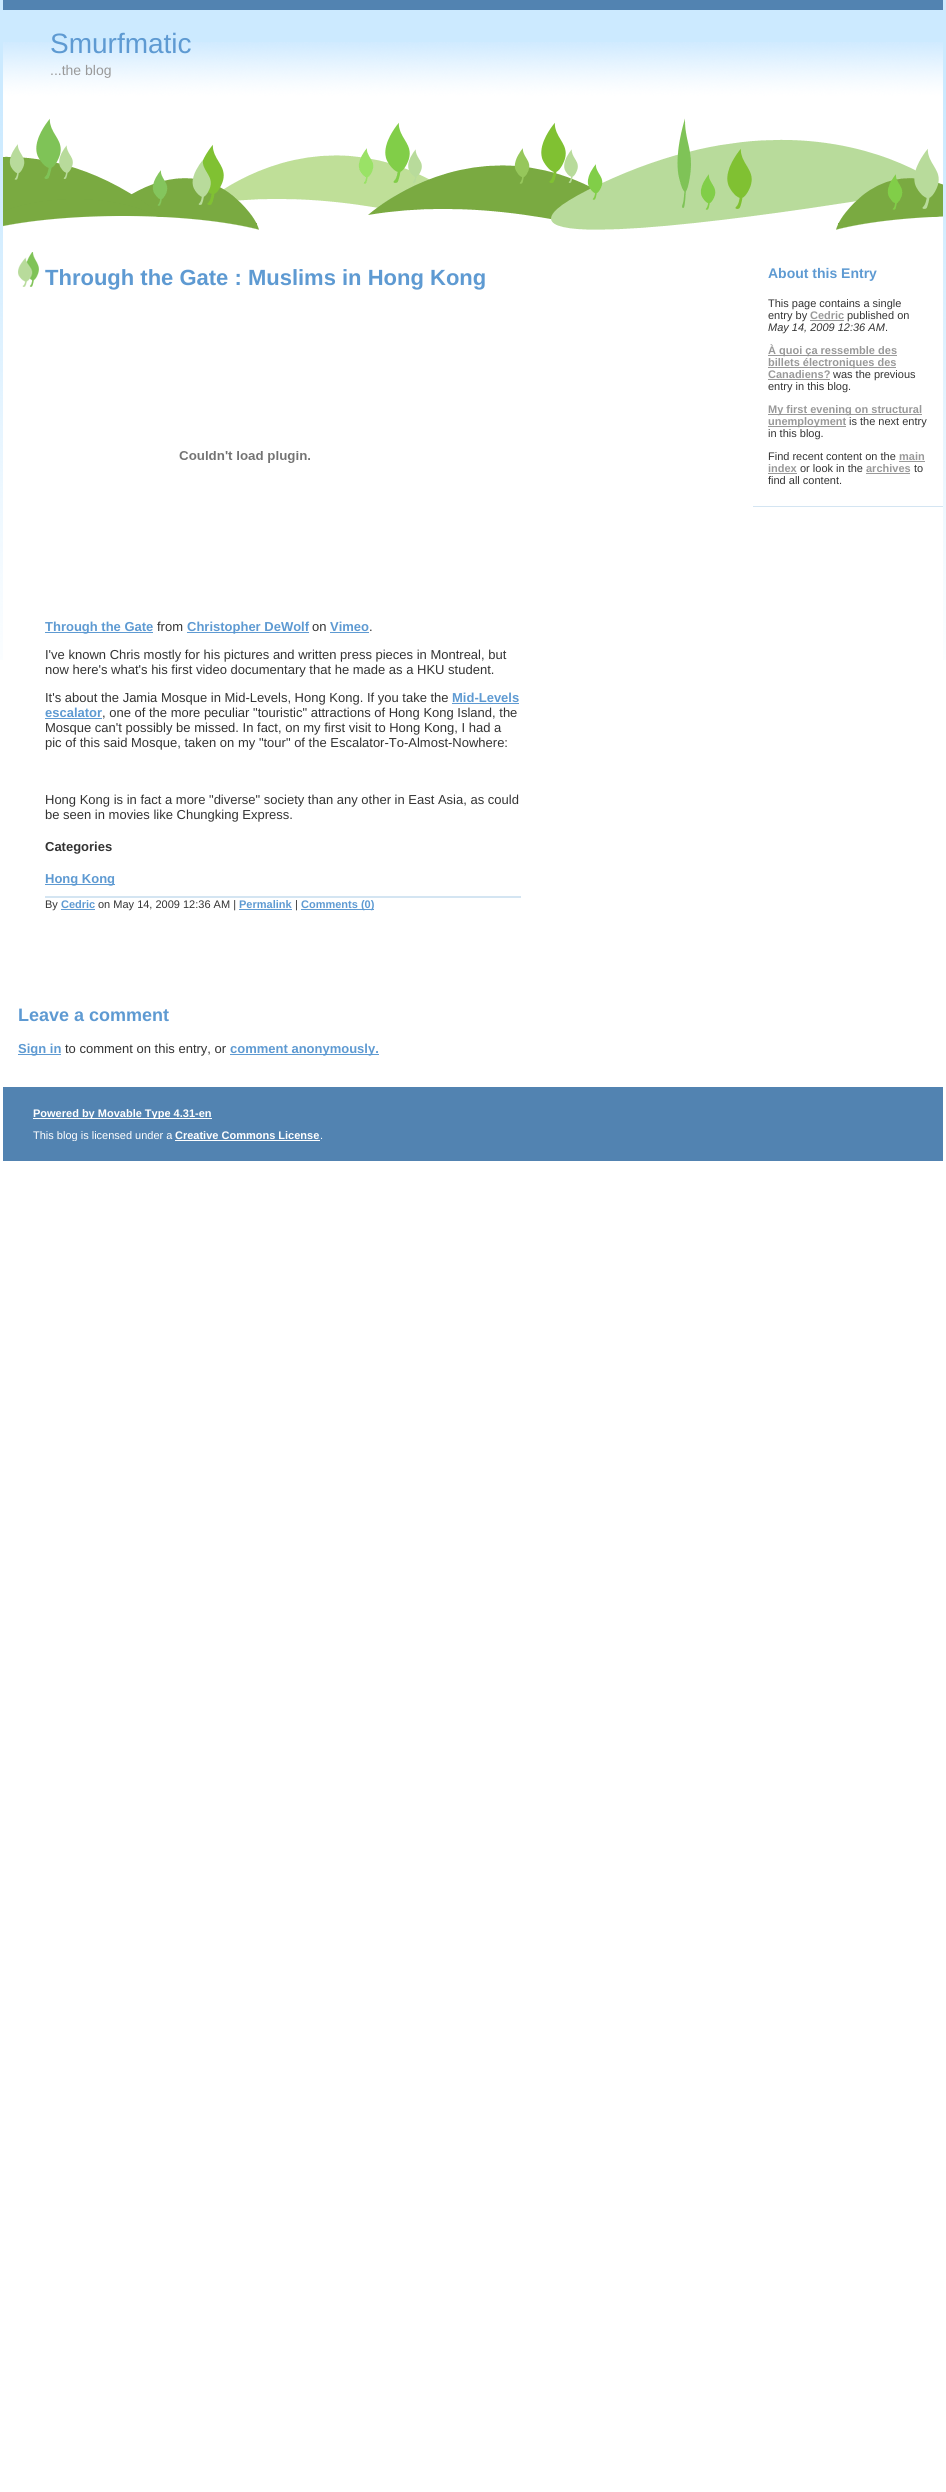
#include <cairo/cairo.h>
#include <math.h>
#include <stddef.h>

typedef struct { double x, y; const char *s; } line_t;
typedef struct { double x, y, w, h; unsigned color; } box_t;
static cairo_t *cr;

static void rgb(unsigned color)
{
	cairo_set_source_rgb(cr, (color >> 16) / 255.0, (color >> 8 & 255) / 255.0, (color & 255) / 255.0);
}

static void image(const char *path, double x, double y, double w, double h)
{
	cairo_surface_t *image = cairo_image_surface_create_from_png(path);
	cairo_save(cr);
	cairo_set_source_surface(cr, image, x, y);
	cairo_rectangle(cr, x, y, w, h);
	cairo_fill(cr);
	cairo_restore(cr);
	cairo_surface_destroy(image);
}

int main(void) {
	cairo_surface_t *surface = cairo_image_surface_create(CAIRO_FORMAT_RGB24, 946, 2492);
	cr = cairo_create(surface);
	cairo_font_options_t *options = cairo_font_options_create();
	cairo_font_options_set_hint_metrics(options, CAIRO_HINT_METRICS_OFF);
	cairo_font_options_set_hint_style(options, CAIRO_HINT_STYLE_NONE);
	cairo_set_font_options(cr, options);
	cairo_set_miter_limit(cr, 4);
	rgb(0xffffff);
	cairo_paint(cr);
	image("img/1.png", 0, 0, 946, 660);
	rgb(0xffffff);
	cairo_rectangle(cr, 3, 240, 940, 420);
	cairo_fill(cr);
	image("img/2.png", 3, 42, 940, 198);
	rgb(0x5283b1);
	cairo_rectangle(cr, 3, 0, 940, 10);
	cairo_fill(cr);
	image("img/3.png", 18, 252, 21, 35);
	image("img/4.png", 179, 451, 131, 12);
	{
		static const box_t items[] = {
			{45, 632, 108, 1, 0x5e9ad2},
			{187, 632, 122, 1, 0x5e9ad2},
			{330, 632, 39, 1, 0x5e9ad2},
			{452, 703, 67, 1, 0x5e9ad2},
			{45, 718, 57, 1, 0x5e9ad2},
			{45, 884, 70, 1, 0x5e9ad2},
			{45, 896, 476, 2, 0xd4e5f2},
			{61, 909, 34, 1, 0x5e9ad2},
			{239, 909, 53, 1, 0x5e9ad2},
			{301, 909, 73, 1, 0x5e9ad2},
			{18, 1054, 43, 1, 0x5e9ad2},
			{230, 1054, 149, 1, 0x5e9ad2},
			{753, 506, 190, 1, 0xd4e5f2},
			{810, 320, 34, 1, 0x999999},
			{768, 355, 129, 1, 0x999999},
			{768, 367, 128, 1, 0x999999},
			{768, 379, 62, 1, 0x999999},
			{768, 414, 154, 1, 0x999999},
			{768, 426, 78, 1, 0x999999},
			{899, 461, 26, 1, 0x999999},
			{768, 473, 29, 1, 0x999999},
			{866, 473, 44, 1, 0x999999},
			{3, 1087, 940, 74, 0x5283b1},
			{33, 1118, 179, 1, 0xffffff},
			{175, 1140, 145, 1, 0xffffff},
		};
		for (size_t i = 0; i < sizeof items / sizeof *items; i++) {
			rgb(items[i].color);
			cairo_rectangle(cr, items[i].x, items[i].y, items[i].w, items[i].h);
			cairo_fill(cr);
		}
	}
	cairo_select_font_face(cr, "Liberation Sans", CAIRO_FONT_SLANT_NORMAL, CAIRO_FONT_WEIGHT_NORMAL);
	cairo_set_font_size(cr, 28);
	rgb(0x5e9ad2);
	cairo_move_to(cr, 50, 53);
	cairo_show_text(cr, "Smurfmatic");
	cairo_set_font_size(cr, 14);
	rgb(0x999999);
	cairo_move_to(cr, 50, 75);
	cairo_show_text(cr, "...the blog");
	cairo_select_font_face(cr, "Liberation Sans", CAIRO_FONT_SLANT_NORMAL, CAIRO_FONT_WEIGHT_BOLD);
	cairo_set_font_size(cr, 22);
	rgb(0x5e9ad2);
	cairo_move_to(cr, 45, 285);
	cairo_show_text(cr, "Through the Gate : Muslims in Hong Kong");
	cairo_set_font_size(cr, 13);
	cairo_move_to(cr, 45, 631);
	cairo_show_text(cr, "Through the Gate");
	cairo_select_font_face(cr, "Liberation Sans", CAIRO_FONT_SLANT_NORMAL, CAIRO_FONT_WEIGHT_NORMAL);
	rgb(0x333333);
	cairo_move_to(cr, 157, 631);
	cairo_show_text(cr, "from");
	cairo_select_font_face(cr, "Liberation Sans", CAIRO_FONT_SLANT_NORMAL, CAIRO_FONT_WEIGHT_BOLD);
	rgb(0x5e9ad2);
	cairo_move_to(cr, 187, 631);
	cairo_show_text(cr, "Christopher DeWolf");
	cairo_select_font_face(cr, "Liberation Sans", CAIRO_FONT_SLANT_NORMAL, CAIRO_FONT_WEIGHT_NORMAL);
	rgb(0x333333);
	cairo_move_to(cr, 312, 631);
	cairo_show_text(cr, "on");
	cairo_select_font_face(cr, "Liberation Sans", CAIRO_FONT_SLANT_NORMAL, CAIRO_FONT_WEIGHT_BOLD);
	rgb(0x5e9ad2);
	cairo_move_to(cr, 330, 631);
	cairo_show_text(cr, "Vimeo");
	cairo_select_font_face(cr, "Liberation Sans", CAIRO_FONT_SLANT_NORMAL, CAIRO_FONT_WEIGHT_NORMAL);
	rgb(0x333333);
	{
		static const line_t items[] = {
			{369, 631, "."},
			{45, 659, "I've known Chris mostly for his pictures and written press pieces in Montreal, but"},
			{45, 674, "now here's what's his first video documentary that he made as a HKU student."},
			{45, 702, "It's about the Jamia Mosque in Mid-Levels, Hong Kong. If you take the"},
		};
		for (size_t i = 0; i < sizeof items / sizeof *items; i++) {
			cairo_move_to(cr, items[i].x, items[i].y);
			cairo_show_text(cr, items[i].s);
		}
	}
	cairo_select_font_face(cr, "Liberation Sans", CAIRO_FONT_SLANT_NORMAL, CAIRO_FONT_WEIGHT_BOLD);
	rgb(0x5e9ad2);
	cairo_move_to(cr, 452, 702);
	cairo_show_text(cr, "Mid-Levels");
	cairo_move_to(cr, 45, 717);
	cairo_show_text(cr, "escalator");
	cairo_select_font_face(cr, "Liberation Sans", CAIRO_FONT_SLANT_NORMAL, CAIRO_FONT_WEIGHT_NORMAL);
	rgb(0x333333);
	{
		static const line_t items[] = {
			{102, 717, ", one of the more peculiar \"touristic\" attractions of Hong Kong Island, the"},
			{45, 732, "Mosque can't possibly be missed. In fact, on my first visit to Hong Kong, I had a"},
			{45, 747, "pic of this said Mosque, taken on my \"tour\" of the Escalator-To-Almost-Nowhere:"},
			{45, 804, "Hong Kong is in fact a more \"diverse\" society than any other in East Asia, as could"},
			{45, 819, "be seen in movies like Chungking Express."},
		};
		for (size_t i = 0; i < sizeof items / sizeof *items; i++) {
			cairo_move_to(cr, items[i].x, items[i].y);
			cairo_show_text(cr, items[i].s);
		}
	}
	cairo_select_font_face(cr, "Liberation Sans", CAIRO_FONT_SLANT_NORMAL, CAIRO_FONT_WEIGHT_BOLD);
	cairo_move_to(cr, 45, 851);
	cairo_show_text(cr, "Categories");
	rgb(0x5e9ad2);
	cairo_move_to(cr, 45, 883);
	cairo_show_text(cr, "Hong Kong");
	cairo_select_font_face(cr, "Liberation Sans", CAIRO_FONT_SLANT_NORMAL, CAIRO_FONT_WEIGHT_NORMAL);
	cairo_set_font_size(cr, 11);
	rgb(0x333333);
	cairo_move_to(cr, 45, 908);
	cairo_show_text(cr, "By");
	cairo_select_font_face(cr, "Liberation Sans", CAIRO_FONT_SLANT_NORMAL, CAIRO_FONT_WEIGHT_BOLD);
	rgb(0x5e9ad2);
	cairo_move_to(cr, 61, 908);
	cairo_show_text(cr, "Cedric");
	cairo_select_font_face(cr, "Liberation Sans", CAIRO_FONT_SLANT_NORMAL, CAIRO_FONT_WEIGHT_NORMAL);
	rgb(0x333333);
	cairo_move_to(cr, 98, 908);
	cairo_show_text(cr, "on May 14, 2009 12:36 AM |");
	cairo_select_font_face(cr, "Liberation Sans", CAIRO_FONT_SLANT_NORMAL, CAIRO_FONT_WEIGHT_BOLD);
	rgb(0x5e9ad2);
	cairo_move_to(cr, 239, 908);
	cairo_show_text(cr, "Permalink");
	cairo_select_font_face(cr, "Liberation Sans", CAIRO_FONT_SLANT_NORMAL, CAIRO_FONT_WEIGHT_NORMAL);
	rgb(0x333333);
	cairo_move_to(cr, 295, 908);
	cairo_show_text(cr, "|");
	cairo_select_font_face(cr, "Liberation Sans", CAIRO_FONT_SLANT_NORMAL, CAIRO_FONT_WEIGHT_BOLD);
	rgb(0x5e9ad2);
	cairo_move_to(cr, 301, 908);
	cairo_show_text(cr, "Comments (0)");
	cairo_set_font_size(cr, 18);
	cairo_move_to(cr, 18, 1021);
	cairo_show_text(cr, "Leave a comment");
	cairo_set_font_size(cr, 13);
	cairo_move_to(cr, 18, 1053);
	cairo_show_text(cr, "Sign in");
	cairo_select_font_face(cr, "Liberation Sans", CAIRO_FONT_SLANT_NORMAL, CAIRO_FONT_WEIGHT_NORMAL);
	rgb(0x333333);
	cairo_move_to(cr, 65, 1053);
	cairo_show_text(cr, "to comment on this entry, or");
	cairo_select_font_face(cr, "Liberation Sans", CAIRO_FONT_SLANT_NORMAL, CAIRO_FONT_WEIGHT_BOLD);
	rgb(0x5e9ad2);
	cairo_move_to(cr, 230, 1053);
	cairo_show_text(cr, "comment anonymously.");
	cairo_set_font_size(cr, 14);
	cairo_move_to(cr, 768, 278);
	cairo_show_text(cr, "About this Entry");
	cairo_select_font_face(cr, "Liberation Sans", CAIRO_FONT_SLANT_NORMAL, CAIRO_FONT_WEIGHT_NORMAL);
	cairo_set_font_size(cr, 11);
	rgb(0x333333);
	cairo_move_to(cr, 768, 307);
	cairo_show_text(cr, "This page contains a single");
	cairo_move_to(cr, 768, 319);
	cairo_show_text(cr, "entry by");
	cairo_select_font_face(cr, "Liberation Sans", CAIRO_FONT_SLANT_NORMAL, CAIRO_FONT_WEIGHT_BOLD);
	rgb(0x999999);
	cairo_move_to(cr, 810, 319);
	cairo_show_text(cr, "Cedric");
	cairo_select_font_face(cr, "Liberation Sans", CAIRO_FONT_SLANT_NORMAL, CAIRO_FONT_WEIGHT_NORMAL);
	rgb(0x333333);
	cairo_move_to(cr, 847, 319);
	cairo_show_text(cr, "published on");
	cairo_select_font_face(cr, "Liberation Sans", CAIRO_FONT_SLANT_ITALIC, CAIRO_FONT_WEIGHT_NORMAL);
	cairo_move_to(cr, 768, 331);
	cairo_show_text(cr, "May 14, 2009 12:36 AM");
	cairo_select_font_face(cr, "Liberation Sans", CAIRO_FONT_SLANT_NORMAL, CAIRO_FONT_WEIGHT_NORMAL);
	cairo_move_to(cr, 885, 331);
	cairo_show_text(cr, ".");
	cairo_select_font_face(cr, "Liberation Sans", CAIRO_FONT_SLANT_NORMAL, CAIRO_FONT_WEIGHT_BOLD);
	rgb(0x999999);
	{
		static const line_t items[] = {
			{768, 354, "À quoi ça ressemble des"},
			{768, 366, "billets électroniques des"},
			{768, 378, "Canadiens?"},
		};
		for (size_t i = 0; i < sizeof items / sizeof *items; i++) {
			cairo_move_to(cr, items[i].x, items[i].y);
			cairo_show_text(cr, items[i].s);
		}
	}
	cairo_select_font_face(cr, "Liberation Sans", CAIRO_FONT_SLANT_NORMAL, CAIRO_FONT_WEIGHT_NORMAL);
	rgb(0x333333);
	cairo_move_to(cr, 833, 378);
	cairo_show_text(cr, "was the previous");
	cairo_move_to(cr, 768, 390);
	cairo_show_text(cr, "entry in this blog.");
	cairo_select_font_face(cr, "Liberation Sans", CAIRO_FONT_SLANT_NORMAL, CAIRO_FONT_WEIGHT_BOLD);
	rgb(0x999999);
	cairo_move_to(cr, 768, 413);
	cairo_show_text(cr, "My first evening on structural");
	cairo_move_to(cr, 768, 425);
	cairo_show_text(cr, "unemployment");
	cairo_select_font_face(cr, "Liberation Sans", CAIRO_FONT_SLANT_NORMAL, CAIRO_FONT_WEIGHT_NORMAL);
	rgb(0x333333);
	{
		static const line_t items[] = {
			{849, 425, "is the next entry"},
			{768, 437, "in this blog."},
			{768, 460, "Find recent content on the"},
		};
		for (size_t i = 0; i < sizeof items / sizeof *items; i++) {
			cairo_move_to(cr, items[i].x, items[i].y);
			cairo_show_text(cr, items[i].s);
		}
	}
	cairo_select_font_face(cr, "Liberation Sans", CAIRO_FONT_SLANT_NORMAL, CAIRO_FONT_WEIGHT_BOLD);
	rgb(0x999999);
	cairo_move_to(cr, 899, 460);
	cairo_show_text(cr, "main");
	cairo_move_to(cr, 768, 472);
	cairo_show_text(cr, "index");
	cairo_select_font_face(cr, "Liberation Sans", CAIRO_FONT_SLANT_NORMAL, CAIRO_FONT_WEIGHT_NORMAL);
	rgb(0x333333);
	cairo_move_to(cr, 800, 472);
	cairo_show_text(cr, "or look in the");
	cairo_select_font_face(cr, "Liberation Sans", CAIRO_FONT_SLANT_NORMAL, CAIRO_FONT_WEIGHT_BOLD);
	rgb(0x999999);
	cairo_move_to(cr, 866, 472);
	cairo_show_text(cr, "archives");
	cairo_select_font_face(cr, "Liberation Sans", CAIRO_FONT_SLANT_NORMAL, CAIRO_FONT_WEIGHT_NORMAL);
	rgb(0x333333);
	cairo_move_to(cr, 914, 472);
	cairo_show_text(cr, "to");
	cairo_move_to(cr, 768, 484);
	cairo_show_text(cr, "find all content.");
	cairo_save(cr);
	cairo_rectangle(cr, 18, 1107, 910, 12);
	cairo_clip(cr);
	cairo_select_font_face(cr, "Liberation Sans", CAIRO_FONT_SLANT_NORMAL, CAIRO_FONT_WEIGHT_BOLD);
	rgb(0xffffff);
	cairo_move_to(cr, 33, 1117);
	cairo_show_text(cr, "Powered by Movable Type 4.31-en");
	cairo_restore(cr);
	cairo_save(cr);
	cairo_rectangle(cr, 18, 1129, 910, 12);
	cairo_clip(cr);
	rgb(0xffffff);
	cairo_move_to(cr, 33, 1139);
	cairo_show_text(cr, "This blog is licensed under a");
	cairo_restore(cr);
	cairo_select_font_face(cr, "Liberation Sans", CAIRO_FONT_SLANT_NORMAL, CAIRO_FONT_WEIGHT_BOLD);
	rgb(0xffffff);
	cairo_move_to(cr, 175, 1139);
	cairo_show_text(cr, "Creative Commons License");
	cairo_select_font_face(cr, "Liberation Sans", CAIRO_FONT_SLANT_NORMAL, CAIRO_FONT_WEIGHT_NORMAL);
	cairo_move_to(cr, 320, 1139);
	cairo_show_text(cr, ".");
	cairo_surface_write_to_png(surface, "page.png");
	cairo_font_options_destroy(options);
	cairo_destroy(cr);
	cairo_surface_destroy(surface);
	return 0;
}
